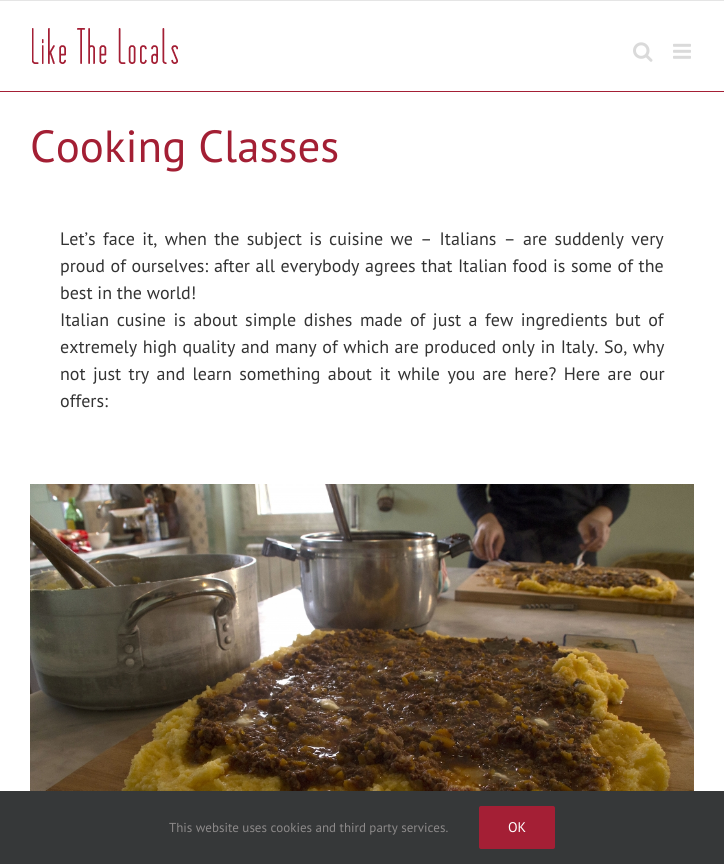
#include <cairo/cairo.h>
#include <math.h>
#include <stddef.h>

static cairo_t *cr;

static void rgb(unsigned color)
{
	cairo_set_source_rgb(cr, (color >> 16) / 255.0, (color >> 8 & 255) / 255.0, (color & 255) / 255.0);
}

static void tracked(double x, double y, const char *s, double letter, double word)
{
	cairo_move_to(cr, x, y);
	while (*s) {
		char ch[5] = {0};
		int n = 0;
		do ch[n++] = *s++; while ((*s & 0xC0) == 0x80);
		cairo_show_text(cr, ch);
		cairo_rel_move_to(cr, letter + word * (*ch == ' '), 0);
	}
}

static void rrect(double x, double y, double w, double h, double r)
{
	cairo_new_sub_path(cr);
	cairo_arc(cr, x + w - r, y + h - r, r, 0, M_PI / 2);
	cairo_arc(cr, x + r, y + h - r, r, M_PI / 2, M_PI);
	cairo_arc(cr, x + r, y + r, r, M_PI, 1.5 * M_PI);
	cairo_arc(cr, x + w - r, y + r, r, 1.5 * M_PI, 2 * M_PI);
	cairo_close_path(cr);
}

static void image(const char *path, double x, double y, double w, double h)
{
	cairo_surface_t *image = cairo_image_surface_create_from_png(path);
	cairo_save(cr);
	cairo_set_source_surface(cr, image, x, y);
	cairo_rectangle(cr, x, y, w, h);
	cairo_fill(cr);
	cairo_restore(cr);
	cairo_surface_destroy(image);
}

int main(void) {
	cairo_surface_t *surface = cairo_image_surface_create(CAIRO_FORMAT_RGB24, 724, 864);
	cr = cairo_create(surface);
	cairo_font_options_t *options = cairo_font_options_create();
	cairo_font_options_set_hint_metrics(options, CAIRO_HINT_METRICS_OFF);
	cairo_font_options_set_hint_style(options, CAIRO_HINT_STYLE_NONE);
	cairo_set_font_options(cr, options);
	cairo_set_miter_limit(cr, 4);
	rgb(0xffffff);
	cairo_paint(cr);
	rgb(0xe5e5e5);
	cairo_rectangle(cr, 0, 0, 724, 1);
	cairo_fill(cr);
	rgb(0xa41f35);
	cairo_rectangle(cr, 0, 91, 724, 1);
	cairo_fill(cr);
	image("img/1.png", 32, 28, 146, 36);
	image("img/2.png", 633, 42, 20, 20);
	image("img/3.png", 673, 43, 18, 16);
	image("img/4.png", 30, 484, 664, 307);
	rgb(0x363839);
	cairo_rectangle(cr, 0, 791, 724, 73);
	cairo_fill(cr);
	rgb(0xa41f35);
	rrect(479, 806, 76, 43, 2);
	cairo_fill(cr);
	cairo_select_font_face(cr, "PT Sans", CAIRO_FONT_SLANT_NORMAL, CAIRO_FONT_WEIGHT_NORMAL);
	cairo_set_font_size(cr, 45);
	rgb(0xa31f34);
	cairo_move_to(cr, 30, 162);
	cairo_show_text(cr, "Cooking Classes");
	cairo_set_font_size(cr, 18);
	rgb(0x333333);
	tracked(60, 245, "Let’s face it, when the subject is cuisine we – Italians – are suddenly very", 0, 2.6);
	tracked(60, 272, "proud of ourselves: after all everybody agrees that Italian food is some of the", 0, 0.8);
	cairo_move_to(cr, 60, 299);
	cairo_show_text(cr, "best in the world!");
	tracked(60, 326, "Italian cusine is about simple dishes made of just a few ingredients but of", 0, 2.75);
	tracked(60, 353, "extremely high quality and many of which are produced only in Italy. So, why", 0, 0.75);
	tracked(60, 380, "not just try and learn something about it while you are here? Here are our", 0, 2.6);
	cairo_move_to(cr, 60, 407);
	cairo_show_text(cr, "offers:");
	cairo_set_font_size(cr, 13);
	rgb(0x8c8989);
	cairo_move_to(cr, 169, 832);
	cairo_show_text(cr, "This website uses cookies and third party services.");
	cairo_set_font_size(cr, 14);
	rgb(0xffffff);
	cairo_move_to(cr, 508, 832);
	cairo_show_text(cr, "OK");
	cairo_surface_write_to_png(surface, "page.png");
	cairo_font_options_destroy(options);
	cairo_destroy(cr);
	cairo_surface_destroy(surface);
	return 0;
}
